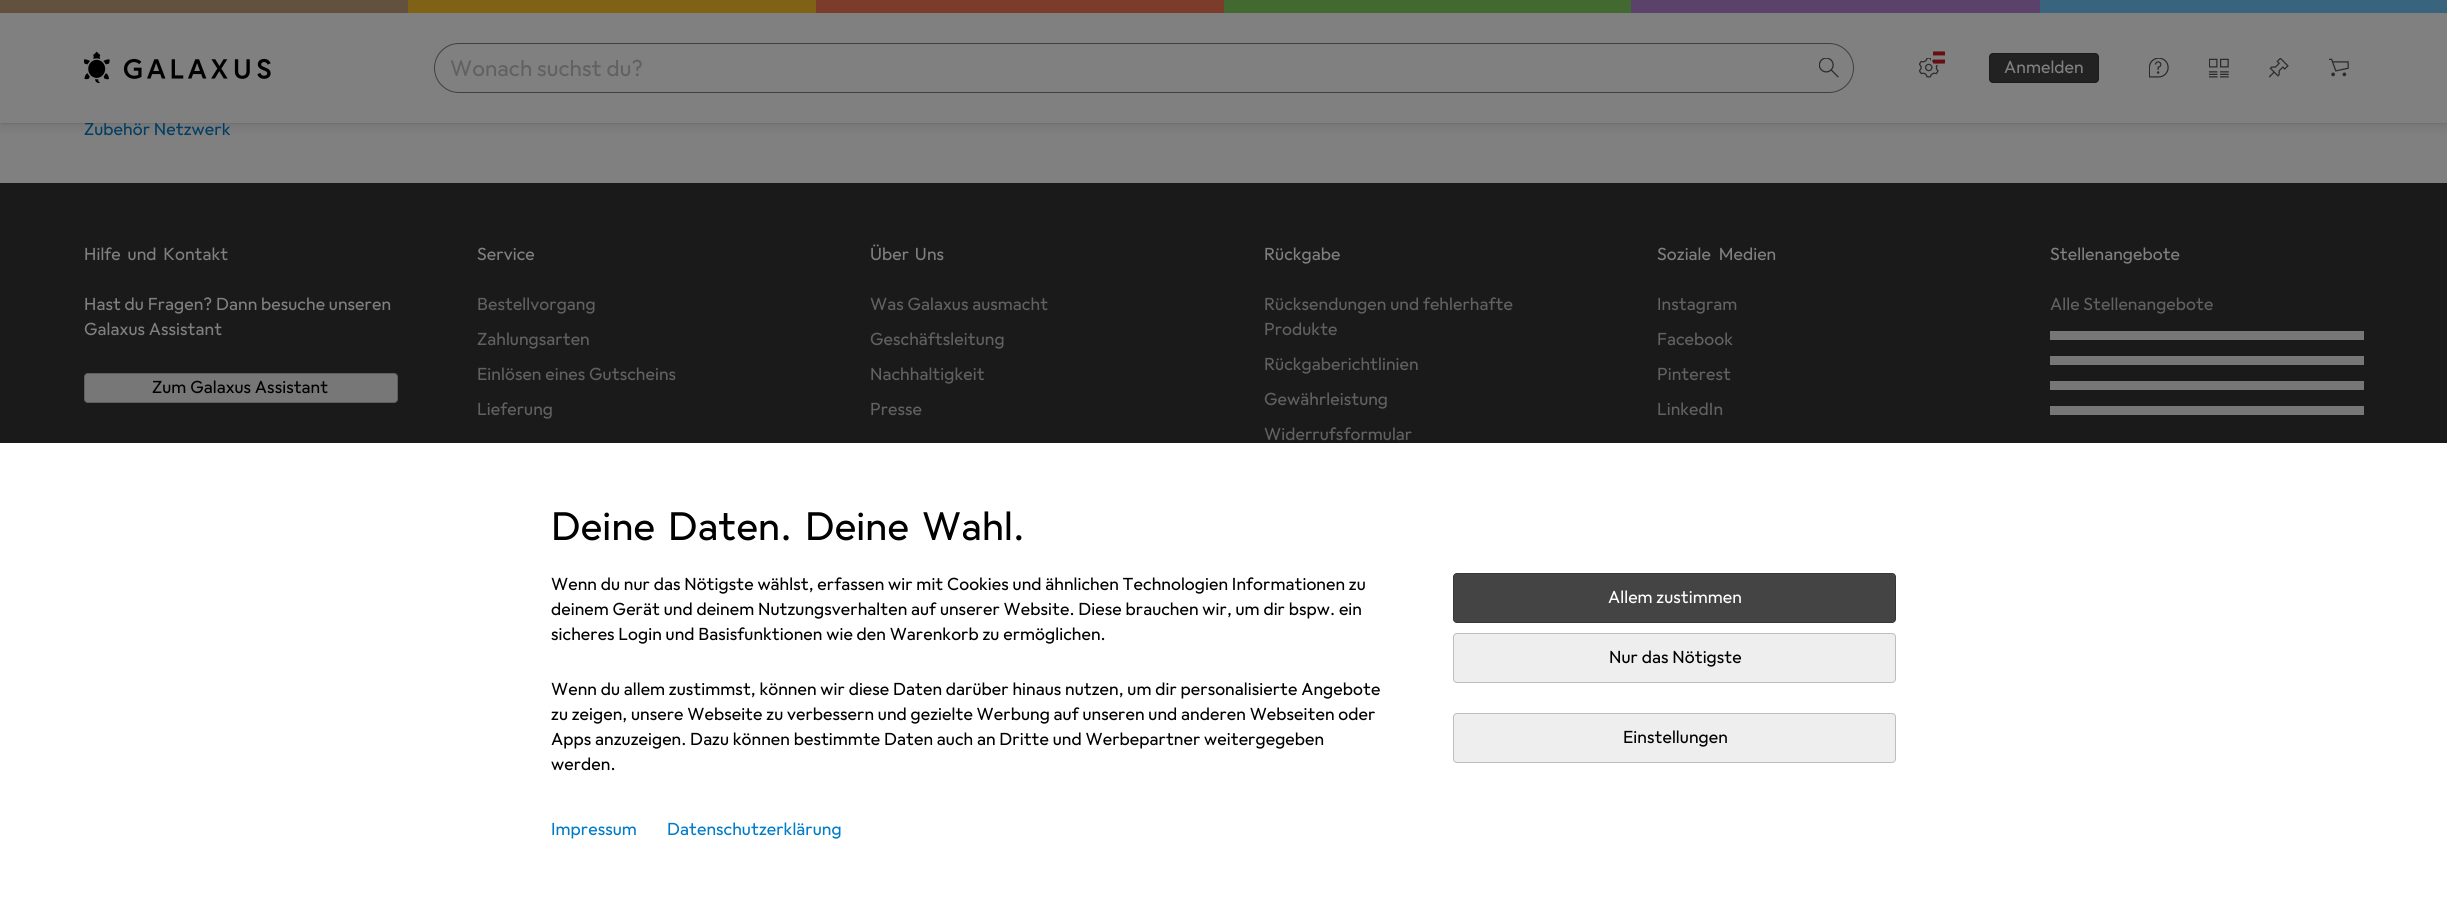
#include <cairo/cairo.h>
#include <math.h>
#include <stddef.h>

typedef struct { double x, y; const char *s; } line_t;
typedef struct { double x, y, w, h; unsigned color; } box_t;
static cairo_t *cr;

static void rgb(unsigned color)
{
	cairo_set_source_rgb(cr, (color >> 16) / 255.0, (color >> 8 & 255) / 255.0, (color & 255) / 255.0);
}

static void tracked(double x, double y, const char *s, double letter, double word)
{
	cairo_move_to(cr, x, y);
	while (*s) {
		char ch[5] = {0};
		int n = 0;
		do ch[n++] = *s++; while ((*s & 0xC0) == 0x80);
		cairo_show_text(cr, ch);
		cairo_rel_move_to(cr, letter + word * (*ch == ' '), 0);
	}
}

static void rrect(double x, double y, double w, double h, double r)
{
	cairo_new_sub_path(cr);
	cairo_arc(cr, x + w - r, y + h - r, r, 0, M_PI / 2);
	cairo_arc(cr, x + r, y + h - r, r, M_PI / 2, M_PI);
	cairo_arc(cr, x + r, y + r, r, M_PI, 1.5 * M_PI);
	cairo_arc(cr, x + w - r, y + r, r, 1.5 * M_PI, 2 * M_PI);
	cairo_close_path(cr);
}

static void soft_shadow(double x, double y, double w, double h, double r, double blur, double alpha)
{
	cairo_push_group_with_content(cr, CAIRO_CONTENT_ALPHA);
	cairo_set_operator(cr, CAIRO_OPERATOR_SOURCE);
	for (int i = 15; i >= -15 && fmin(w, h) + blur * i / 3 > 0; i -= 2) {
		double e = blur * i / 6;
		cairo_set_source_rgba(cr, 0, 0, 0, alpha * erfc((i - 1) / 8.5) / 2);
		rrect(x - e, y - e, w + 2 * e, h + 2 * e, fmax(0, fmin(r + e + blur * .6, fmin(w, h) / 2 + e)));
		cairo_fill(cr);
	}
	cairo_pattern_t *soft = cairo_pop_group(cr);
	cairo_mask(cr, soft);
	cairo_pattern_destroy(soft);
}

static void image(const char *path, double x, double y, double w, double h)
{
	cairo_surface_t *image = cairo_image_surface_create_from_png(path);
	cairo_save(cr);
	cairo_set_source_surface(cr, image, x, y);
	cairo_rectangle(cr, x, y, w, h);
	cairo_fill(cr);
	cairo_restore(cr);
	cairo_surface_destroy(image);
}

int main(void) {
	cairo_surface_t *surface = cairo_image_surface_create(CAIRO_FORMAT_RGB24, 2447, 912);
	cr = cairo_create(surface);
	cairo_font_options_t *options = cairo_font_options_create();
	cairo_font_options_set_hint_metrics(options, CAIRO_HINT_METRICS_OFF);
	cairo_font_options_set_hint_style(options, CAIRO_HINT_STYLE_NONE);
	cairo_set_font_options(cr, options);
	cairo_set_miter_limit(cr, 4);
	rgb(0x808080);
	cairo_paint(cr);
	rgb(0x000000);
	soft_shadow(0, 5, 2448, 123, 0, 5, 0.08);
	soft_shadow(0, 0, 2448, 123, 0, 1, 0.16);
	{
		static const box_t items[] = {
			{0, 0, 408, 13, 0x62513c},
			{408, 0, 408, 13, 0x806217},
			{816, 0, 408, 13, 0x7b3c2c},
			{1224, 0, 407, 13, 0x426930},
			{1631, 0, 409, 13, 0x5a426a},
			{2040, 0, 407, 13, 0x39647d},
			{0, 183, 2447, 260, 0x1a1a1a},
		};
		for (size_t i = 0; i < sizeof items / sizeof *items; i++) {
			rgb(items[i].color);
			cairo_rectangle(cr, items[i].x, items[i].y, items[i].w, items[i].h);
			cairo_fill(cr);
		}
	}
	rgb(0x777777);
	rrect(84, 373, 314, 30, 4);
	cairo_fill(cr);
	rrect(84.5, 373.5, 313, 29, 3.5);
	cairo_set_source_rgba(cr, 0, 0, 0, 0.2);
	cairo_set_line_width(cr, 1);
	cairo_stroke(cr);
	{
		static const box_t items[] = {
			{2050, 331, 314, 9, 0x777777},
			{2050, 356, 314, 9, 0x777777},
			{2050, 381, 314, 9, 0x777777},
			{2050, 406, 314, 9, 0x777777},
			{0, 443, 2447, 469, 0xffffff},
		};
		for (size_t i = 0; i < sizeof items / sizeof *items; i++) {
			rgb(items[i].color);
			cairo_rectangle(cr, items[i].x, items[i].y, items[i].w, items[i].h);
			cairo_fill(cr);
		}
	}
	rgb(0x444444);
	rrect(1453, 573, 443, 50, 4);
	cairo_fill(cr);
	rrect(1453.5, 573.5, 442, 49, 3.5);
	cairo_set_source_rgba(cr, 0, 0, 0, 0.2);
	cairo_stroke(cr);
	rgb(0xeeeeee);
	rrect(1453, 633, 443, 50, 4);
	cairo_fill(cr);
	rrect(1453.5, 633.5, 442, 49, 3.5);
	cairo_set_source_rgba(cr, 0, 0, 0, 0.2);
	cairo_stroke(cr);
	rgb(0xeeeeee);
	rrect(1453, 713, 443, 50, 4);
	cairo_fill(cr);
	rrect(1453.5, 713.5, 442, 49, 3.5);
	cairo_set_source_rgba(cr, 0, 0, 0, 0.2);
	cairo_stroke(cr);
	cairo_select_font_face(cr, "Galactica", CAIRO_FONT_SLANT_NORMAL, CAIRO_FONT_WEIGHT_NORMAL);
	cairo_set_font_size(cr, 17.5);
	rgb(0x003e64);
	tracked(84, 135, "Zubehör Netzwerk", 0.09, 0);
	rgb(0x808080);
	cairo_rectangle(cr, 0, 13, 2447, 110);
	cairo_fill(cr);
	image("img/1.png", 84, 51, 187, 32);
	rrect(434.5, 43.5, 1419, 49, 24.5);
	rgb(0x404040);
	cairo_stroke(cr);
	cairo_set_font_size(cr, 22.5);
	rgb(0x616161);
	tracked(450, 76, "Wonach suchst du?", 0.1, 0);
	image("img/2.png", 1819, 58, 20, 20);
	image("img/8.png", 2329, 58, 20, 19);
	image("img/7.png", 2269, 58, 20, 20);
	image("img/6.png", 2209, 58, 20, 20);
	image("img/5.png", 2149, 58, 20, 20);
	rgb(0x222222);
	rrect(1989, 53, 110, 30, 4);
	cairo_fill(cr);
	rrect(1989.5, 53.5, 109, 29, 3.5);
	cairo_set_source_rgba(cr, 0, 0, 0, 0.2);
	cairo_stroke(cr);
	cairo_set_font_size(cr, 17.5);
	rgb(0x808080);
	tracked(2004, 73, "Anmelden", 0.09, 0);
	image("img/4.png", 1919, 58, 20, 20);
	rrect(1931.5, 50.5, 14, 14, 2);
	cairo_stroke(cr);
	image("img/3.png", 1933, 51, 12, 13);
	tracked(84, 260, "Hilfe und Kontakt", 0.09, 3);
	tracked(84, 310, "Hast du Fragen? Dann besuche unseren", 0.09, 0);
	tracked(84, 335, "Galaxus Assistant", 0.09, 0);
	rgb(0x000000);
	tracked(152, 393, "Zum Galaxus Assistant", 0.09, 0);
	rgb(0x808080);
	tracked(477, 260, "Service", 0.09, 0);
	rgb(0x616161);
	{
		static const line_t items[] = {
			{477, 310, "Bestellvorgang"},
			{477, 345, "Zahlungsarten"},
			{477, 380, "Einlösen eines Gutscheins"},
			{477, 415, "Lieferung"},
		};
		for (size_t i = 0; i < sizeof items / sizeof *items; i++) {
			tracked(items[i].x, items[i].y, items[i].s, 0.09, 0);
		}
	}
	rgb(0x808080);
	tracked(870, 260, "Über Uns", 0.09, 2);
	rgb(0x616161);
	{
		static const line_t items[] = {
			{870, 310, "Was Galaxus ausmacht"},
			{870, 345, "Geschäftsleitung"},
			{870, 380, "Nachhaltigkeit"},
			{870, 415, "Presse"},
		};
		for (size_t i = 0; i < sizeof items / sizeof *items; i++) {
			tracked(items[i].x, items[i].y, items[i].s, 0.09, 0);
		}
	}
	rgb(0x808080);
	tracked(1264, 260, "Rückgabe", 0.09, 0);
	rgb(0x616161);
	{
		static const line_t items[] = {
			{1264, 310, "Rücksendungen und fehlerhafte"},
			{1264, 335, "Produkte"},
			{1264, 370, "Rückgaberichtlinien"},
			{1264, 405, "Gewährleistung"},
			{1264, 440, "Widerrufsformular"},
		};
		for (size_t i = 0; i < sizeof items / sizeof *items; i++) {
			tracked(items[i].x, items[i].y, items[i].s, 0.09, 0);
		}
	}
	rgb(0x808080);
	tracked(1657, 260, "Soziale Medien", 0.09, 4);
	rgb(0x616161);
	{
		static const line_t items[] = {
			{1657, 310, "Instagram"},
			{1657, 345, "Facebook"},
			{1657, 380, "Pinterest"},
			{1657, 415, "LinkedIn"},
		};
		for (size_t i = 0; i < sizeof items / sizeof *items; i++) {
			tracked(items[i].x, items[i].y, items[i].s, 0.09, 0);
		}
	}
	rgb(0x808080);
	tracked(2050, 260, "Stellenangebote", 0.09, 0);
	rgb(0x616161);
	tracked(2050, 310, "Alle Stellenangebote", 0.09, 0);
	cairo_set_font_size(cr, 40);
	rgb(0x000000);
	tracked(551, 540, "Deine Daten. Deine Wahl.", 0.2, 4.5);
	cairo_set_font_size(cr, 17.5);
	{
		static const line_t items[] = {
			{551, 590, "Wenn du nur das Nötigste wählst, erfassen wir mit Cookies und ähnlichen Technologien Informationen zu"},
			{551, 615, "deinem Gerät und deinem Nutzungsverhalten auf unserer Website. Diese brauchen wir, um dir bspw. ein"},
			{551, 640, "sicheres Login und Basisfunktionen wie den Warenkorb zu ermöglichen."},
			{551, 695, "Wenn du allem zustimmst, können wir diese Daten darüber hinaus nutzen, um dir personalisierte Angebote"},
			{551, 720, "zu zeigen, unsere Webseite zu verbessern und gezielte Werbung auf unseren und anderen Webseiten oder"},
			{551, 745, "Apps anzuzeigen. Dazu können bestimmte Daten auch an Dritte und Werbepartner weitergegeben"},
			{551, 770, "werden."},
		};
		for (size_t i = 0; i < sizeof items / sizeof *items; i++) {
			tracked(items[i].x, items[i].y, items[i].s, 0.09, 0);
		}
	}
	rgb(0xffffff);
	tracked(1608, 603, "Allem zustimmen", 0.09, 0);
	rgb(0x000000);
	tracked(1609, 663, "Nur das Nötigste", 0.09, 0);
	tracked(1623, 743, "Einstellungen", 0.09, 0);
	rgb(0x007bc7);
	tracked(551, 835, "Impressum", 0.09, 0);
	tracked(667, 835, "Datenschutzerklärung", 0.09, 0);
	cairo_surface_write_to_png(surface, "page.png");
	cairo_font_options_destroy(options);
	cairo_destroy(cr);
	cairo_surface_destroy(surface);
	return 0;
}
